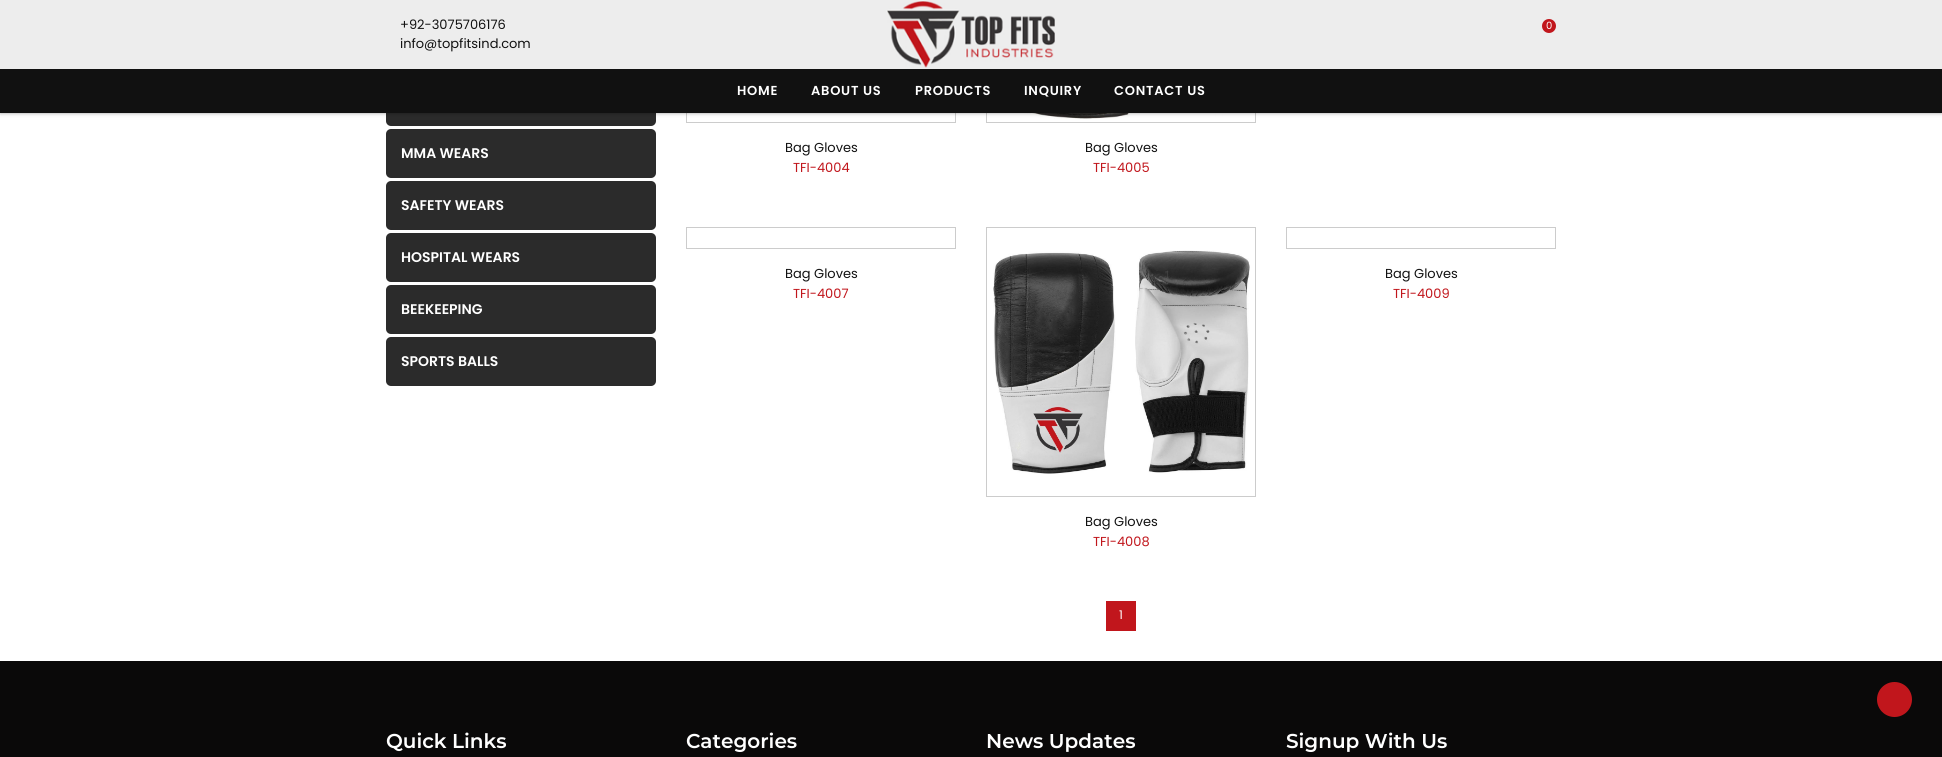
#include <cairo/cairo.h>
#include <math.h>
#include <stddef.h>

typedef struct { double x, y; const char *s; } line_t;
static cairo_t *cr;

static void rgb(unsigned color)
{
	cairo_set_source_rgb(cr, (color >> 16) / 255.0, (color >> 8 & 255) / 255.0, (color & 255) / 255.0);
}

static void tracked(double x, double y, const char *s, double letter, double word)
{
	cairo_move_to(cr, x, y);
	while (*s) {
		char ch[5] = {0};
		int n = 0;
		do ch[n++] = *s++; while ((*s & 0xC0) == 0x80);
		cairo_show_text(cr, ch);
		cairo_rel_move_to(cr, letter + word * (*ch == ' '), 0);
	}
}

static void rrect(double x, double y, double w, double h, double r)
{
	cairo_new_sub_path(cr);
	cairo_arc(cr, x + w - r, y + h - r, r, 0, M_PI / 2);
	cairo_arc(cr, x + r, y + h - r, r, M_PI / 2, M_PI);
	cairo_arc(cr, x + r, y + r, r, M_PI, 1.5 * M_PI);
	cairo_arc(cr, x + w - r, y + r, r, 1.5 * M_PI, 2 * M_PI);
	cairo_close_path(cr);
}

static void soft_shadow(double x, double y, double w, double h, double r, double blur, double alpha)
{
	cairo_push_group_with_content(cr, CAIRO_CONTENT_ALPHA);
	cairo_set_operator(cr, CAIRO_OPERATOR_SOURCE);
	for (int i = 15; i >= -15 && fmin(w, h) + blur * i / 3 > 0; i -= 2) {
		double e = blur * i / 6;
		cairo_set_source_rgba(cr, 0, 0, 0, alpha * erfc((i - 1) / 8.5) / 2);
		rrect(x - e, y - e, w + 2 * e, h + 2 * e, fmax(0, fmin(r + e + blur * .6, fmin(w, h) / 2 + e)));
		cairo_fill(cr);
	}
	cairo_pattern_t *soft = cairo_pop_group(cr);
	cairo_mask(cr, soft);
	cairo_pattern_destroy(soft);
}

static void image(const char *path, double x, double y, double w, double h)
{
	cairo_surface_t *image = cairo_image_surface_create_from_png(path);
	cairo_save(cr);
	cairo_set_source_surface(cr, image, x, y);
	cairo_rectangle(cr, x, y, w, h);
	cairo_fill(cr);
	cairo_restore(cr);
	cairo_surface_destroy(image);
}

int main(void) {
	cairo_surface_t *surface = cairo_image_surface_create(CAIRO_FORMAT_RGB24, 1942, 757);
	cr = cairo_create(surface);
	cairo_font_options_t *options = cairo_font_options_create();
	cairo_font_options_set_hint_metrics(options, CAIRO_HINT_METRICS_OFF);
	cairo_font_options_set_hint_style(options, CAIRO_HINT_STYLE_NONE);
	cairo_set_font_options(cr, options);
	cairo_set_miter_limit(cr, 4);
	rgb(0xffffff);
	cairo_paint(cr);
	rgb(0x2b2b2b);
	rrect(386, 77, 270, 49, 5);
	cairo_fill(cr);
	cairo_rectangle(cr, 686.5, -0.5, 269, 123);
	rgb(0xcccccc);
	cairo_set_line_width(cr, 1);
	cairo_stroke(cr);
	cairo_rectangle(cr, 986.5, -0.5, 269, 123);
	cairo_stroke(cr);
	image("img/2.png", 1011, 113, 220, 6);
	rgb(0x000000);
	soft_shadow(0, 0, 1942, 113, 0, 2, 0.4);
	rgb(0xededed);
	cairo_rectangle(cr, 0, 0, 1942, 69);
	cairo_fill(cr);
	image("img/1.png", 886, 0, 169, 68);
	rgb(0xc1161c);
	cairo_arc(cr, 1549, 26, 7, 0, 2 * M_PI);
	cairo_fill(cr);
	rgb(0x111111);
	cairo_rectangle(cr, 0, 69, 1942, 44);
	cairo_fill(cr);
	rgb(0x2b2b2b);
	rrect(386, 129, 270, 49, 5);
	cairo_fill(cr);
	rrect(386, 181, 270, 49, 5);
	cairo_fill(cr);
	rrect(386, 233, 270, 49, 5);
	cairo_fill(cr);
	rrect(386, 285, 270, 49, 5);
	cairo_fill(cr);
	rrect(386, 337, 270, 49, 5);
	cairo_fill(cr);
	cairo_rectangle(cr, 686.5, 227.5, 269, 21);
	rgb(0xcccccc);
	cairo_stroke(cr);
	cairo_rectangle(cr, 1286.5, 227.5, 269, 21);
	cairo_stroke(cr);
	cairo_rectangle(cr, 986.5, 227.5, 269, 269);
	cairo_stroke(cr);
	image("img/3.png", 993, 250, 257, 224);
	rgb(0xc1161c);
	cairo_rectangle(cr, 1106, 601, 30, 30);
	cairo_fill(cr);
	rgb(0x0a0909);
	cairo_rectangle(cr, 0, 661, 1942, 96);
	cairo_fill(cr);
	rgb(0xc1161c);
	cairo_arc(cr, 1894.5, 699.5, 17.5, 0, 2 * M_PI);
	cairo_fill(cr);
	cairo_select_font_face(cr, "Poppins", CAIRO_FONT_SLANT_NORMAL, CAIRO_FONT_WEIGHT_NORMAL);
	cairo_set_font_size(cr, 13);
	rgb(0x111111);
	cairo_move_to(cr, 400, 29);
	cairo_show_text(cr, "+92-3075706176");
	cairo_move_to(cr, 400, 48);
	cairo_show_text(cr, "info@topfitsind.com");
	cairo_set_font_size(cr, 10);
	rgb(0xffffff);
	cairo_move_to(cr, 1546, 29);
	cairo_show_text(cr, "0");
	cairo_select_font_face(cr, "Poppins SemiBold", CAIRO_FONT_SLANT_NORMAL, CAIRO_FONT_WEIGHT_NORMAL);
	cairo_set_font_size(cr, 13);
	{
		static const line_t items[] = {
			{737, 95, "HOME"},
			{811, 95, "ABOUT US"},
			{915, 95, "PRODUCTS"},
			{1024, 95, "INQUIRY"},
			{1114, 95, "CONTACT US"},
		};
		for (size_t i = 0; i < sizeof items / sizeof *items; i++) {
			tracked(items[i].x, items[i].y, items[i].s, 0.75, 0);
		}
	}
	cairo_set_font_size(cr, 14);
	{
		static const line_t items[] = {
			{401, 158, "MMA WEARS"},
			{401, 210, "SAFETY WEARS"},
			{401, 262, "HOSPITAL WEARS"},
			{401, 314, "BEEKEEPING"},
			{401, 366, "SPORTS BALLS"},
		};
		for (size_t i = 0; i < sizeof items / sizeof *items; i++) {
			cairo_move_to(cr, items[i].x, items[i].y);
			cairo_show_text(cr, items[i].s);
		}
	}
	cairo_select_font_face(cr, "Poppins", CAIRO_FONT_SLANT_NORMAL, CAIRO_FONT_WEIGHT_NORMAL);
	cairo_set_font_size(cr, 13);
	rgb(0x111111);
	cairo_move_to(cr, 785, 152);
	cairo_show_text(cr, "Bag Gloves");
	rgb(0xc1161c);
	cairo_move_to(cr, 793, 172);
	cairo_show_text(cr, "TFI-4004");
	rgb(0x111111);
	cairo_move_to(cr, 1085, 152);
	cairo_show_text(cr, "Bag Gloves");
	rgb(0xc1161c);
	cairo_move_to(cr, 1093, 172);
	cairo_show_text(cr, "TFI-4005");
	rgb(0x111111);
	cairo_move_to(cr, 785, 278);
	cairo_show_text(cr, "Bag Gloves");
	rgb(0xc1161c);
	cairo_move_to(cr, 793, 298);
	cairo_show_text(cr, "TFI-4007");
	rgb(0x111111);
	cairo_move_to(cr, 1385, 278);
	cairo_show_text(cr, "Bag Gloves");
	rgb(0xc1161c);
	cairo_move_to(cr, 1393, 298);
	cairo_show_text(cr, "TFI-4009");
	rgb(0x111111);
	cairo_move_to(cr, 1085, 526);
	cairo_show_text(cr, "Bag Gloves");
	rgb(0xc1161c);
	cairo_move_to(cr, 1093, 546);
	cairo_show_text(cr, "TFI-4008");
	cairo_set_font_size(cr, 12);
	rgb(0xffffff);
	cairo_move_to(cr, 1119, 619);
	cairo_show_text(cr, "1");
	cairo_select_font_face(cr, "Montserrat SemiBold", CAIRO_FONT_SLANT_NORMAL, CAIRO_FONT_WEIGHT_NORMAL);
	cairo_set_font_size(cr, 20);
	{
		static const line_t items[] = {
			{386, 748, "Quick Links"},
			{686, 748, "Categories"},
			{986, 748, "News Updates"},
			{1286, 748, "Signup With Us"},
		};
		for (size_t i = 0; i < sizeof items / sizeof *items; i++) {
			cairo_move_to(cr, items[i].x, items[i].y);
			cairo_show_text(cr, items[i].s);
		}
	}
	cairo_surface_write_to_png(surface, "page.png");
	cairo_font_options_destroy(options);
	cairo_destroy(cr);
	cairo_surface_destroy(surface);
	return 0;
}
